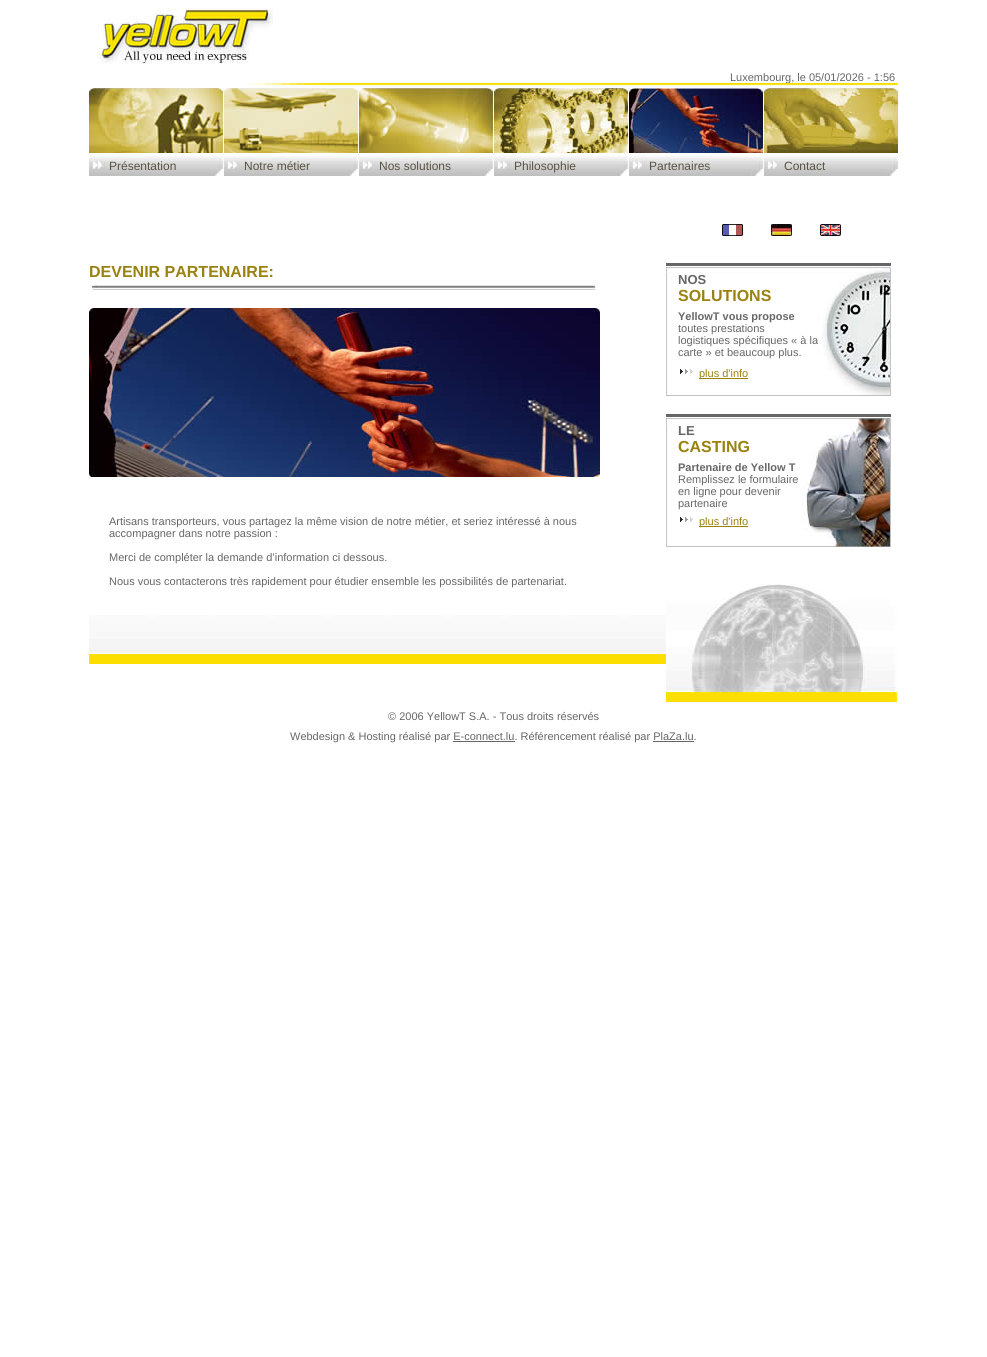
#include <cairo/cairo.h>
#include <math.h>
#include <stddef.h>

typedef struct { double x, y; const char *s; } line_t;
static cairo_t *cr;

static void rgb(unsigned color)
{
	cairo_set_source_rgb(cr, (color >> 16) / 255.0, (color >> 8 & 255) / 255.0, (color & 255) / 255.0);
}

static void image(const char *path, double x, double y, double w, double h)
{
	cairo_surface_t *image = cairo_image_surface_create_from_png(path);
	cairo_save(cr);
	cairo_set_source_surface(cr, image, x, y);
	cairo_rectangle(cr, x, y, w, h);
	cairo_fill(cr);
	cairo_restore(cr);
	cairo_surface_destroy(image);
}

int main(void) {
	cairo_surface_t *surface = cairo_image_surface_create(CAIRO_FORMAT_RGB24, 987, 1357);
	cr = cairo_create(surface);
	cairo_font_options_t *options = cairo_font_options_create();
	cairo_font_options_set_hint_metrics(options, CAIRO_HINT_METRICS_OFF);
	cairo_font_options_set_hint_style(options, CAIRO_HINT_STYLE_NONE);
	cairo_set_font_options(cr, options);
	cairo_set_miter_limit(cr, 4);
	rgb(0xffffff);
	cairo_paint(cr);
	image("img/1.png", 97, 8, 176, 56);
	image("img/3.png", 89, 88, 135, 65);
	image("img/4.png", 224, 88, 135, 65);
	image("img/5.png", 359, 88, 135, 65);
	image("img/6.png", 494, 88, 135, 65);
	image("img/7.png", 629, 88, 135, 65);
	image("img/8.png", 764, 88, 135, 65);
	image("img/9.png", 89, 156, 135, 20);
	image("img/9.png", 224, 156, 135, 20);
	image("img/9.png", 359, 156, 135, 20);
	image("img/9.png", 494, 156, 135, 20);
	image("img/9.png", 629, 156, 135, 20);
	image("img/9.png", 764, 156, 135, 20);
	image("img/10.png", 89, 279, 509, 11);
	image("img/11.png", 89, 308, 511, 169);
	image("img/12.png", 89, 615, 577, 49);
	image("img/13.png", 722, 224, 119, 12);
	rgb(0x666666);
	cairo_rectangle(cr, 666, 263, 225, 3);
	cairo_fill(cr);
	image("img/14.png", 666, 267, 225, 129);
	image("img/15.png", 680, 369, 13, 5);
	rgb(0x9a8211);
	cairo_rectangle(cr, 699, 378, 49, 1);
	cairo_fill(cr);
	rgb(0x666666);
	cairo_rectangle(cr, 666, 414, 225, 3);
	cairo_fill(cr);
	image("img/16.png", 666, 418, 225, 129);
	image("img/15.png", 680, 517, 13, 5);
	rgb(0x9a8211);
	cairo_rectangle(cr, 699, 526, 49, 1);
	cairo_fill(cr);
	image("img/17.png", 666, 583, 232, 119);
	rgb(0x666666);
	cairo_rectangle(cr, 453, 741, 62, 1);
	cairo_fill(cr);
	cairo_rectangle(cr, 653, 741, 41, 1);
	cairo_fill(cr);
	cairo_select_font_face(cr, "Liberation Sans", CAIRO_FONT_SLANT_NORMAL, CAIRO_FONT_WEIGHT_NORMAL);
	cairo_set_font_size(cr, 11);
	cairo_move_to(cr, 730, 81);
	cairo_show_text(cr, "Luxembourg, le 05/01/2026 - 1:56");
	image("img/2.png", 249, 83, 650, 5);
	cairo_set_font_size(cr, 12);
	rgb(0x585342);
	{
		static const line_t items[] = {
			{109, 170, "Présentation"},
			{244, 170, "Notre métier"},
			{379, 170, "Nos solutions"},
			{514, 170, "Philosophie"},
			{649, 170, "Partenaires"},
			{784, 170, "Contact"},
		};
		for (size_t i = 0; i < sizeof items / sizeof *items; i++) {
			cairo_move_to(cr, items[i].x, items[i].y);
			cairo_show_text(cr, items[i].s);
		}
	}
	cairo_select_font_face(cr, "Liberation Sans", CAIRO_FONT_SLANT_NORMAL, CAIRO_FONT_WEIGHT_BOLD);
	cairo_set_font_size(cr, 16);
	rgb(0x9a8211);
	cairo_move_to(cr, 89, 277);
	cairo_show_text(cr, "DEVENIR PARTENAIRE:");
	cairo_select_font_face(cr, "Liberation Sans", CAIRO_FONT_SLANT_NORMAL, CAIRO_FONT_WEIGHT_NORMAL);
	cairo_set_font_size(cr, 11);
	rgb(0x666666);
	{
		static const line_t items[] = {
			{109, 525, "Artisans transporteurs, vous partagez la même vision de notre métier, et seriez intéressé à nous"},
			{109, 537, "accompagner dans notre passion :"},
			{109, 561, "Merci de compléter la demande d’information ci dessous."},
			{109, 585, "Nous vous contacterons très rapidement pour étudier ensemble les possibilités de partenariat."},
		};
		for (size_t i = 0; i < sizeof items / sizeof *items; i++) {
			cairo_move_to(cr, items[i].x, items[i].y);
			cairo_show_text(cr, items[i].s);
		}
	}
	cairo_select_font_face(cr, "Liberation Sans", CAIRO_FONT_SLANT_NORMAL, CAIRO_FONT_WEIGHT_BOLD);
	cairo_set_font_size(cr, 13);
	cairo_move_to(cr, 678, 284);
	cairo_show_text(cr, "NOS");
	cairo_set_font_size(cr, 16);
	rgb(0x9a8211);
	cairo_move_to(cr, 678, 301);
	cairo_show_text(cr, "SOLUTIONS");
	cairo_set_font_size(cr, 11);
	rgb(0x666666);
	cairo_move_to(cr, 678, 320);
	cairo_show_text(cr, "YellowT vous propose");
	cairo_select_font_face(cr, "Liberation Sans", CAIRO_FONT_SLANT_NORMAL, CAIRO_FONT_WEIGHT_NORMAL);
	{
		static const line_t items[] = {
			{678, 332, "toutes prestations"},
			{678, 344, "logistiques spécifiques « à la"},
			{678, 356, "carte » et beaucoup plus."},
		};
		for (size_t i = 0; i < sizeof items / sizeof *items; i++) {
			cairo_move_to(cr, items[i].x, items[i].y);
			cairo_show_text(cr, items[i].s);
		}
	}
	rgb(0x9a8211);
	cairo_move_to(cr, 699, 377);
	cairo_show_text(cr, "plus d'info");
	cairo_select_font_face(cr, "Liberation Sans", CAIRO_FONT_SLANT_NORMAL, CAIRO_FONT_WEIGHT_BOLD);
	cairo_set_font_size(cr, 13);
	rgb(0x666666);
	cairo_move_to(cr, 678, 435);
	cairo_show_text(cr, "LE");
	cairo_set_font_size(cr, 16);
	rgb(0x9a8211);
	cairo_move_to(cr, 678, 452);
	cairo_show_text(cr, "CASTING");
	cairo_set_font_size(cr, 11);
	rgb(0x666666);
	cairo_move_to(cr, 678, 471);
	cairo_show_text(cr, "Partenaire de Yellow T");
	cairo_select_font_face(cr, "Liberation Sans", CAIRO_FONT_SLANT_NORMAL, CAIRO_FONT_WEIGHT_NORMAL);
	{
		static const line_t items[] = {
			{678, 483, "Remplissez le formulaire"},
			{678, 495, "en ligne pour devenir"},
			{678, 507, "partenaire"},
		};
		for (size_t i = 0; i < sizeof items / sizeof *items; i++) {
			cairo_move_to(cr, items[i].x, items[i].y);
			cairo_show_text(cr, items[i].s);
		}
	}
	rgb(0x9a8211);
	cairo_move_to(cr, 699, 525);
	cairo_show_text(cr, "plus d'info");
	rgb(0x666666);
	cairo_move_to(cr, 388, 720);
	cairo_show_text(cr, "© 2006 YellowT S.A. - Tous droits réservés");
	cairo_move_to(cr, 290, 740);
	cairo_show_text(cr, "Webdesign & Hosting réalisé par E-connect.lu. Référencement réalisé par PlaZa.lu.");
	cairo_surface_write_to_png(surface, "page.png");
	cairo_font_options_destroy(options);
	cairo_destroy(cr);
	cairo_surface_destroy(surface);
	return 0;
}
